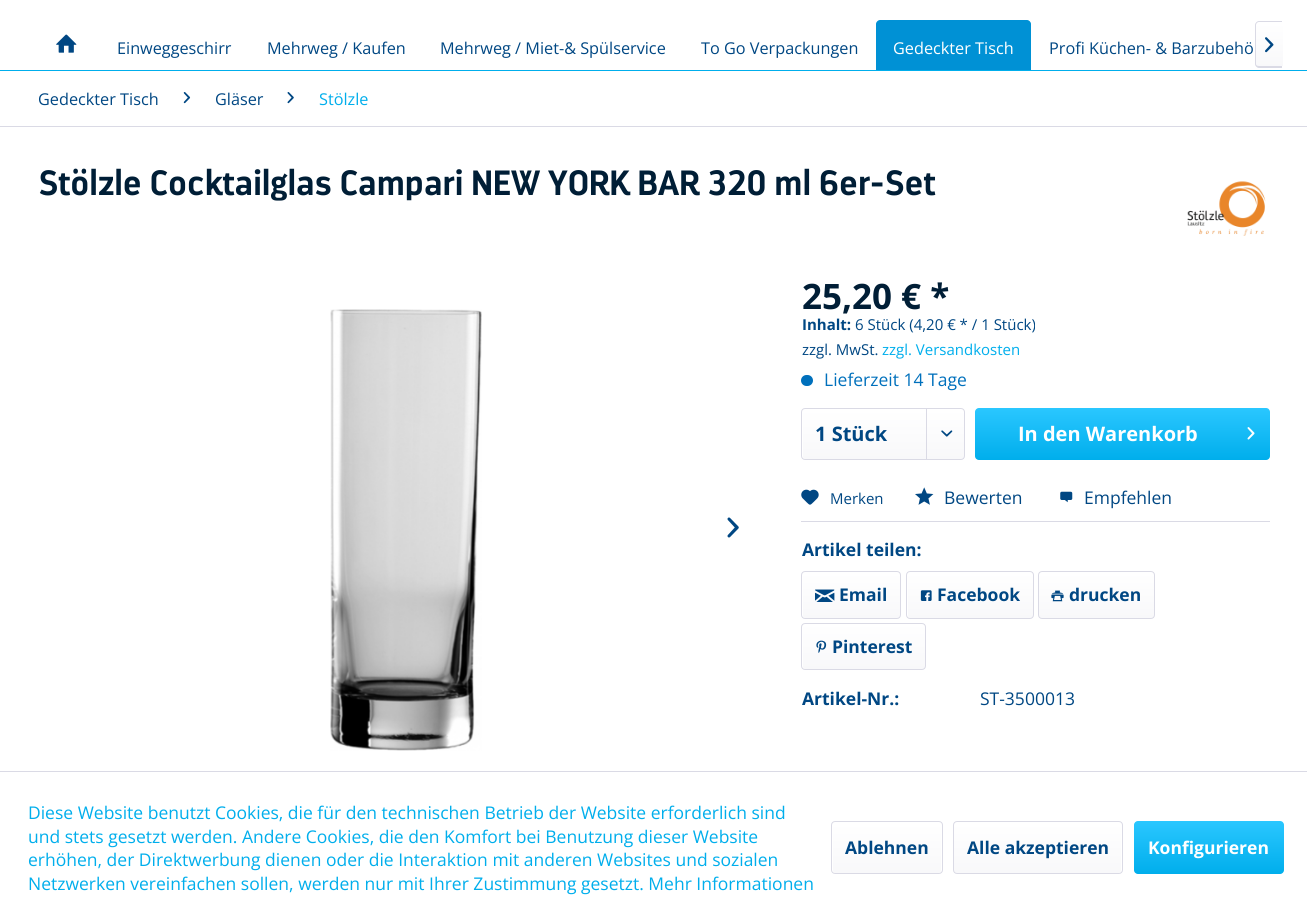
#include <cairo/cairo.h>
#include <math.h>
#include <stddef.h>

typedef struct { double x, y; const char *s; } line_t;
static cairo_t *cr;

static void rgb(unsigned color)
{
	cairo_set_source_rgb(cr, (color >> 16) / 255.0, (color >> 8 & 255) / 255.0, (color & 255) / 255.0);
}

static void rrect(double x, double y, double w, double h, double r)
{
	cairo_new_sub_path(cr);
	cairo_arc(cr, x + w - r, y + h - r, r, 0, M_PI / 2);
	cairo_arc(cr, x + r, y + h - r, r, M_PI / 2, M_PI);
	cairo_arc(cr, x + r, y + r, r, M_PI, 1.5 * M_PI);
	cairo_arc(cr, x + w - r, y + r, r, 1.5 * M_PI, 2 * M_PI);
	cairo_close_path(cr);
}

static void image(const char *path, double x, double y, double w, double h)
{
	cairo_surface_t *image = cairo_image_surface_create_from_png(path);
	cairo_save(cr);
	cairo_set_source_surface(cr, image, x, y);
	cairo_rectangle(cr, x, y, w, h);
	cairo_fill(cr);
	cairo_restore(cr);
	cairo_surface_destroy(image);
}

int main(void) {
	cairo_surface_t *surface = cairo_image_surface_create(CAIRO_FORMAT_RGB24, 1307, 922);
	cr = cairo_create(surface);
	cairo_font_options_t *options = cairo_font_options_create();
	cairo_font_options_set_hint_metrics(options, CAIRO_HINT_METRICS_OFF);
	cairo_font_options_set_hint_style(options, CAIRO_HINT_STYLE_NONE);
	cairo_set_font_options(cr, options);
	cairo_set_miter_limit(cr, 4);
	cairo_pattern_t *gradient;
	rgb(0xffffff);
	cairo_paint(cr);
	rgb(0x00aeec);
	cairo_rectangle(cr, 0, 70, 1307, 1);
	cairo_fill(cr);
	image("img/1.png", 56, 34, 21, 19);
	rgb(0x0091d5);
	cairo_new_path(cr);
	cairo_move_to(cr, 880, 20);
	cairo_line_to(cr, 1027, 20);
	cairo_curve_to(cr, 1029, 20, 1031, 22, 1031, 24);
	cairo_line_to(cr, 1031, 70);
	cairo_line_to(cr, 876, 70);
	cairo_line_to(cr, 876, 24);
	cairo_curve_to(cr, 876, 22, 878, 20, 880, 20);
	cairo_close_path(cr);
	cairo_fill(cr);
	gradient = cairo_pattern_create_linear(1269, 23, 1269, 66);
	cairo_pattern_add_color_stop_rgba(gradient, 0, 1, 1, 1, 1);
	cairo_pattern_add_color_stop_rgba(gradient, 1, 0.973, 0.973, 0.98, 1);
	cairo_set_source(cr, gradient);
	cairo_pattern_destroy(gradient);
	cairo_new_path(cr);
	cairo_move_to(cr, 1258.5, 23);
	cairo_line_to(cr, 1283, 23);
	cairo_line_to(cr, 1283, 66);
	cairo_line_to(cr, 1258.5, 66);
	cairo_curve_to(cr, 1257, 66, 1256, 65, 1256, 63.5);
	cairo_line_to(cr, 1256, 25.5);
	cairo_curve_to(cr, 1256, 24, 1257, 23, 1258.5, 23);
	cairo_close_path(cr);
	cairo_fill(cr);
	rgb(0xdadae5);
	cairo_set_fill_rule(cr, CAIRO_FILL_RULE_EVEN_ODD);
	cairo_new_path(cr);
	cairo_move_to(cr, 1259, 21);
	cairo_line_to(cr, 1282, 21);
	cairo_line_to(cr, 1282, 68);
	cairo_line_to(cr, 1259, 68);
	cairo_curve_to(cr, 1257, 68, 1255, 66, 1255, 64);
	cairo_line_to(cr, 1255, 25);
	cairo_curve_to(cr, 1255, 23, 1257, 21, 1259, 21);
	cairo_close_path(cr);
	cairo_move_to(cr, 1259, 22);
	cairo_line_to(cr, 1282, 22);
	cairo_line_to(cr, 1282, 66);
	cairo_line_to(cr, 1259, 66);
	cairo_curve_to(cr, 1257, 66, 1256, 65, 1256, 64);
	cairo_line_to(cr, 1256, 25);
	cairo_curve_to(cr, 1256, 24, 1257, 22, 1259, 22);
	cairo_close_path(cr);
	cairo_fill(cr);
	image("img/2.png", 1265, 37, 9, 16);
	cairo_rectangle(cr, 0, 126, 1307, 1);
	cairo_fill(cr);
	image("img/3.png", 183, 92, 8, 12);
	image("img/4.png", 287, 92, 7, 12);
	image("img/5.png", 1187, 181, 79, 55);
	image("img/6.png", 330, 309, 152, 442);
	image("img/7.png", 727, 517, 12, 21);
	rgb(0x0070bc);
	rrect(801, 375, 12, 11, 5.5);
	cairo_fill(cr);
	gradient = cairo_pattern_create_linear(883, 409, 883, 459);
	cairo_pattern_add_color_stop_rgba(gradient, 0, 1, 1, 1, 1);
	cairo_pattern_add_color_stop_rgba(gradient, 1, 0.973, 0.973, 0.98, 1);
	cairo_set_source(cr, gradient);
	cairo_pattern_destroy(gradient);
	rrect(803, 409, 161, 50, 2.5);
	cairo_fill(cr);
	rrect(801.5, 408.5, 163, 51, 3.5);
	rgb(0xdadae5);
	cairo_set_line_width(cr, 1);
	cairo_stroke(cr);
	cairo_rectangle(cr, 926, 409, 1, 50);
	cairo_fill(cr);
	image("img/8.png", 941, 430, 12, 7);
	gradient = cairo_pattern_create_linear(1123, 408, 1123, 460);
	cairo_pattern_add_color_stop_rgba(gradient, 0, 0.165, 0.78, 1, 1);
	cairo_pattern_add_color_stop_rgba(gradient, 1, 0, 0.682, 0.925, 1);
	cairo_set_source(cr, gradient);
	cairo_pattern_destroy(gradient);
	rrect(975, 408, 295, 52, 4);
	cairo_fill(cr);
	image("img/9.png", 1247, 427, 8, 13);
	rgb(0xdadae5);
	cairo_rectangle(cr, 801, 521, 469, 1);
	cairo_fill(cr);
	image("img/10.png", 801, 489, 18, 16);
	image("img/11.png", 915, 487, 19, 18);
	image("img/12.png", 1060, 491, 13, 12);
	gradient = cairo_pattern_create_linear(851, 573, 851, 618);
	cairo_pattern_add_color_stop_rgba(gradient, 0, 1, 1, 1, 1);
	cairo_pattern_add_color_stop_rgba(gradient, 1, 0.973, 0.973, 0.98, 1);
	cairo_set_source(cr, gradient);
	cairo_pattern_destroy(gradient);
	rrect(803, 573, 97, 45, 2.5);
	cairo_fill(cr);
	rrect(801.5, 571.5, 99, 47, 3.5);
	rgb(0xdadae5);
	cairo_stroke(cr);
	image("img/13.png", 815, 589, 20, 13);
	gradient = cairo_pattern_create_linear(970, 573, 970, 618);
	cairo_pattern_add_color_stop_rgba(gradient, 0, 1, 1, 1, 1);
	cairo_pattern_add_color_stop_rgba(gradient, 1, 0.973, 0.973, 0.98, 1);
	cairo_set_source(cr, gradient);
	cairo_pattern_destroy(gradient);
	rrect(908, 573, 125, 45, 2.5);
	cairo_fill(cr);
	rrect(906.5, 571.5, 127, 47, 3.5);
	rgb(0xdadae5);
	cairo_stroke(cr);
	image("img/14.png", 920, 590, 12, 11);
	gradient = cairo_pattern_create_linear(1096, 573, 1096, 618);
	cairo_pattern_add_color_stop_rgba(gradient, 0, 1, 1, 1, 1);
	cairo_pattern_add_color_stop_rgba(gradient, 1, 0.973, 0.973, 0.98, 1);
	cairo_set_source(cr, gradient);
	cairo_pattern_destroy(gradient);
	rrect(1039, 573, 115, 45, 2.5);
	cairo_fill(cr);
	rrect(1038.5, 571.5, 116, 47, 3.5);
	rgb(0xdadae5);
	cairo_stroke(cr);
	image("img/15.png", 1051, 590, 13, 12);
	gradient = cairo_pattern_create_linear(864, 624, 864, 669);
	cairo_pattern_add_color_stop_rgba(gradient, 0, 1, 1, 1, 1);
	cairo_pattern_add_color_stop_rgba(gradient, 1, 0.973, 0.973, 0.98, 1);
	cairo_set_source(cr, gradient);
	cairo_pattern_destroy(gradient);
	rrect(803, 624, 122, 45, 2.5);
	cairo_fill(cr);
	rrect(801.5, 623.5, 124, 46, 3.5);
	rgb(0xdadae5);
	cairo_stroke(cr);
	image("img/16.png", 816, 640, 11, 13);
	cairo_rectangle(cr, 0, 771, 1307, 1);
	cairo_fill(cr);
	gradient = cairo_pattern_create_linear(887, 823, 887, 873);
	cairo_pattern_add_color_stop_rgba(gradient, 0, 1, 1, 1, 1);
	cairo_pattern_add_color_stop_rgba(gradient, 1, 0.973, 0.973, 0.98, 1);
	cairo_set_source(cr, gradient);
	cairo_pattern_destroy(gradient);
	rrect(833, 823, 108, 50, 2.5);
	cairo_fill(cr);
	rrect(831.5, 821.5, 111, 52, 3.5);
	rgb(0xdadae5);
	cairo_stroke(cr);
	gradient = cairo_pattern_create_linear(1038, 823, 1038, 873);
	cairo_pattern_add_color_stop_rgba(gradient, 0, 1, 1, 1, 1);
	cairo_pattern_add_color_stop_rgba(gradient, 1, 0.973, 0.973, 0.98, 1);
	cairo_set_source(cr, gradient);
	cairo_pattern_destroy(gradient);
	rrect(954, 823, 167, 50, 2.5);
	cairo_fill(cr);
	rrect(953.5, 821.5, 169, 52, 3.5);
	rgb(0xdadae5);
	cairo_stroke(cr);
	gradient = cairo_pattern_create_linear(1209, 821, 1209, 874);
	cairo_pattern_add_color_stop_rgba(gradient, 0, 0.165, 0.78, 1, 1);
	cairo_pattern_add_color_stop_rgba(gradient, 1, 0, 0.682, 0.925, 1);
	cairo_set_source(cr, gradient);
	cairo_pattern_destroy(gradient);
	rrect(1134, 821, 150, 53, 4);
	cairo_fill(cr);
	cairo_select_font_face(cr, "Open Sans", CAIRO_FONT_SLANT_NORMAL, CAIRO_FONT_WEIGHT_NORMAL);
	cairo_set_font_size(cr, 16.25);
	rgb(0x004783);
	{
		static const line_t items[] = {
			{117, 54, "Einweggeschirr"},
			{267, 54, "Mehrweg / Kaufen"},
			{440, 54, "Mehrweg / Miet-& Spülservice"},
			{701, 54, "To Go Verpackungen"},
		};
		for (size_t i = 0; i < sizeof items / sizeof *items; i++) {
			cairo_move_to(cr, items[i].x, items[i].y);
			cairo_show_text(cr, items[i].s);
		}
	}
	rgb(0xffffff);
	cairo_move_to(cr, 893, 54);
	cairo_show_text(cr, "Gedeckter Tisch");
	rgb(0x004783);
	{
		static const line_t items[] = {
			{1049, 54, "Profi Küchen- & Barzubehö"},
			{38, 105, "Gedeckter Tisch"},
			{215, 105, "Gläser"},
		};
		for (size_t i = 0; i < sizeof items / sizeof *items; i++) {
			cairo_move_to(cr, items[i].x, items[i].y);
			cairo_show_text(cr, items[i].s);
		}
	}
	rgb(0x00aeec);
	cairo_move_to(cr, 319, 105);
	cairo_show_text(cr, "Stölzle");
	cairo_select_font_face(cr, "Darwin", CAIRO_FONT_SLANT_NORMAL, CAIRO_FONT_WEIGHT_NORMAL);
	cairo_set_font_size(cr, 35);
	rgb(0x001e36);
	cairo_move_to(cr, 38, 195);
	cairo_show_text(cr, "Stölzle Cocktailglas Campari NEW YORK BAR 320 ml 6er-Set");
	cairo_select_font_face(cr, "Open Sans", CAIRO_FONT_SLANT_NORMAL, CAIRO_FONT_WEIGHT_BOLD);
	cairo_move_to(cr, 802, 309);
	cairo_show_text(cr, "25,20 € *");
	cairo_set_font_size(cr, 15);
	rgb(0x004783);
	cairo_move_to(cr, 802, 330);
	cairo_show_text(cr, "Inhalt:");
	cairo_select_font_face(cr, "Open Sans", CAIRO_FONT_SLANT_NORMAL, CAIRO_FONT_WEIGHT_NORMAL);
	cairo_move_to(cr, 855, 330);
	cairo_show_text(cr, "6 Stück (4,20 € * / 1 Stück)");
	cairo_move_to(cr, 802, 355);
	cairo_show_text(cr, "zzgl. MwSt.");
	rgb(0x00aeec);
	cairo_move_to(cr, 882, 355);
	cairo_show_text(cr, "zzgl. Versandkosten");
	cairo_set_font_size(cr, 17.5);
	rgb(0x0070bc);
	cairo_move_to(cr, 824, 386);
	cairo_show_text(cr, "Lieferzeit 14 Tage");
	cairo_select_font_face(cr, "Open Sans", CAIRO_FONT_SLANT_NORMAL, CAIRO_FONT_WEIGHT_BOLD);
	cairo_set_font_size(cr, 20);
	rgb(0x004783);
	cairo_move_to(cr, 815, 441);
	cairo_show_text(cr, "1 Stück");
	rgb(0xffffff);
	cairo_move_to(cr, 1018, 441);
	cairo_show_text(cr, "In den Warenkorb");
	cairo_select_font_face(cr, "Open Sans", CAIRO_FONT_SLANT_NORMAL, CAIRO_FONT_WEIGHT_NORMAL);
	cairo_set_font_size(cr, 15);
	rgb(0x004783);
	cairo_move_to(cr, 830, 504);
	cairo_show_text(cr, "Merken");
	cairo_set_font_size(cr, 17.5);
	cairo_move_to(cr, 944, 504);
	cairo_show_text(cr, "Bewerten");
	cairo_move_to(cr, 1084, 504);
	cairo_show_text(cr, "Empfehlen");
	cairo_select_font_face(cr, "Open Sans", CAIRO_FONT_SLANT_NORMAL, CAIRO_FONT_WEIGHT_BOLD);
	{
		static const line_t items[] = {
			{802, 556, "Artikel teilen:"},
			{839, 601, "Email"},
			{937, 601, "Facebook"},
			{1069, 601, "drucken"},
			{832, 653, "Pinterest"},
			{802, 705, "Artikel-Nr.:"},
		};
		for (size_t i = 0; i < sizeof items / sizeof *items; i++) {
			cairo_move_to(cr, items[i].x, items[i].y);
			cairo_show_text(cr, items[i].s);
		}
	}
	cairo_select_font_face(cr, "Open Sans", CAIRO_FONT_SLANT_NORMAL, CAIRO_FONT_WEIGHT_NORMAL);
	cairo_move_to(cr, 980, 705);
	cairo_show_text(cr, "ST-3500013");
	rgb(0x00aeec);
	{
		static const line_t items[] = {
			{28, 819, "Diese Website benutzt Cookies, die für den technischen Betrieb der Website erforderlich sind"},
			{28, 843, "und stets gesetzt werden. Andere Cookies, die den Komfort bei Benutzung dieser Website"},
			{28, 866, "erhöhen, der Direktwerbung dienen oder die Interaktion mit anderen Websites und sozialen"},
			{28, 890, "Netzwerken vereinfachen sollen, werden nur mit Ihrer Zustimmung gesetzt. Mehr Informationen"},
		};
		for (size_t i = 0; i < sizeof items / sizeof *items; i++) {
			cairo_move_to(cr, items[i].x, items[i].y);
			cairo_show_text(cr, items[i].s);
		}
	}
	cairo_select_font_face(cr, "Open Sans", CAIRO_FONT_SLANT_NORMAL, CAIRO_FONT_WEIGHT_BOLD);
	rgb(0x004783);
	cairo_move_to(cr, 845, 854);
	cairo_show_text(cr, "Ablehnen");
	cairo_move_to(cr, 967, 854);
	cairo_show_text(cr, "Alle akzeptieren");
	rgb(0xffffff);
	cairo_move_to(cr, 1148, 854);
	cairo_show_text(cr, "Konfigurieren");
	cairo_surface_write_to_png(surface, "page.png");
	cairo_font_options_destroy(options);
	cairo_destroy(cr);
	cairo_surface_destroy(surface);
	return 0;
}
